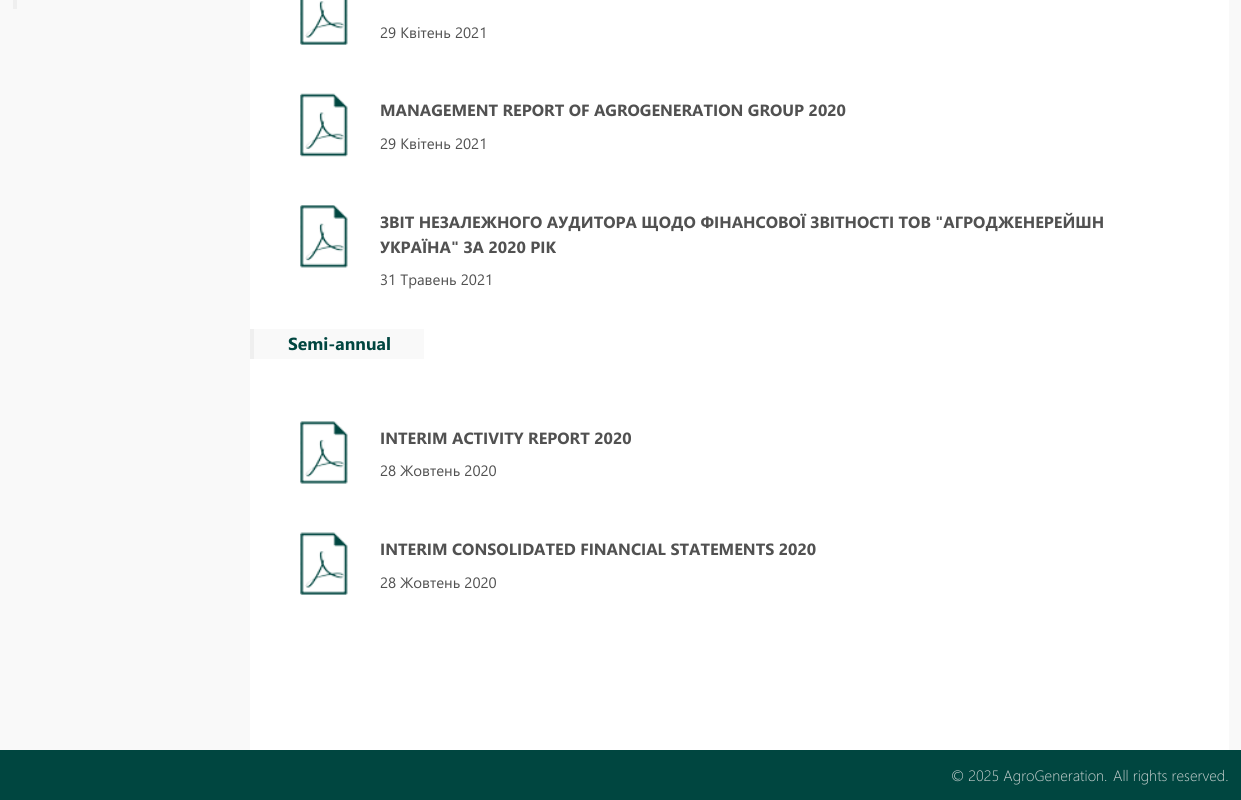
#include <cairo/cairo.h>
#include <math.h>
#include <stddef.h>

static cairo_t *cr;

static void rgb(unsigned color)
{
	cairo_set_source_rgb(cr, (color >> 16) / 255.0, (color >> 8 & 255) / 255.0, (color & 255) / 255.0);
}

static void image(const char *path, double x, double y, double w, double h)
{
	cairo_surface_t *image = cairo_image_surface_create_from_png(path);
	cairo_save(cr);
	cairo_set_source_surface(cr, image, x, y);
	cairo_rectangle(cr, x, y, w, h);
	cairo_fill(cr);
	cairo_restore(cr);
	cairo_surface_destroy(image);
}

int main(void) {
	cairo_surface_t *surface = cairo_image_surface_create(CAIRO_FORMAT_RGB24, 1241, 800);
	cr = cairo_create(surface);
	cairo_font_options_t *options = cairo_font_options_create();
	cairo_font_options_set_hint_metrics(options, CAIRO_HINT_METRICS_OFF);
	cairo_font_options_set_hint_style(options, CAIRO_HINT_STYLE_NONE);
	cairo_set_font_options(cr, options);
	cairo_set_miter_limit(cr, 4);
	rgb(0xf9f9f9);
	cairo_paint(cr);
	rgb(0xefefef);
	cairo_rectangle(cr, 13, 0, 4, 9);
	cairo_fill(cr);
	rgb(0xffffff);
	cairo_rectangle(cr, 250, 0, 979, 750);
	cairo_fill(cr);
	image("img/1.png", 300, 0, 48, 45);
	image("img/2.png", 300, 93, 48, 64);
	image("img/3.png", 300, 205, 48, 63);
	rgb(0xf9f9f9);
	cairo_rectangle(cr, 254, 329, 170, 30);
	cairo_fill(cr);
	rgb(0xefefef);
	cairo_rectangle(cr, 250, 329, 4, 30);
	cairo_fill(cr);
	image("img/4.png", 300, 421, 48, 63);
	image("img/5.png", 300, 532, 48, 63);
	rgb(0x004640);
	cairo_rectangle(cr, 0, 750, 1241, 50);
	cairo_fill(cr);
	cairo_select_font_face(cr, "Segoe UI", CAIRO_FONT_SLANT_NORMAL, CAIRO_FONT_WEIGHT_NORMAL);
	cairo_set_font_size(cr, 15);
	rgb(0x515151);
	cairo_move_to(cr, 380, 38);
	cairo_show_text(cr, "29 Квітень 2021");
	cairo_select_font_face(cr, "Segoe UI", CAIRO_FONT_SLANT_NORMAL, CAIRO_FONT_WEIGHT_BOLD);
	cairo_set_font_size(cr, 16.25);
	cairo_move_to(cr, 380, 116);
	cairo_show_text(cr, "MANAGEMENT REPORT OF AGROGENERATION GROUP 2020");
	cairo_select_font_face(cr, "Segoe UI", CAIRO_FONT_SLANT_NORMAL, CAIRO_FONT_WEIGHT_NORMAL);
	cairo_set_font_size(cr, 15);
	cairo_move_to(cr, 380, 149);
	cairo_show_text(cr, "29 Квітень 2021");
	cairo_select_font_face(cr, "Segoe UI", CAIRO_FONT_SLANT_NORMAL, CAIRO_FONT_WEIGHT_BOLD);
	cairo_set_font_size(cr, 16.25);
	cairo_move_to(cr, 380, 228);
	cairo_show_text(cr, "ЗВІТ НЕЗАЛЕЖНОГО АУДИТОРА ЩОДО ФІНАНСОВОЇ ЗВІТНОСТІ ТОВ \"АГРОДЖЕНЕРЕЙШН");
	cairo_move_to(cr, 380, 253);
	cairo_show_text(cr, "УКРАЇНА\" ЗА 2020 РІК");
	cairo_select_font_face(cr, "Segoe UI", CAIRO_FONT_SLANT_NORMAL, CAIRO_FONT_WEIGHT_NORMAL);
	cairo_set_font_size(cr, 15);
	cairo_move_to(cr, 380, 285);
	cairo_show_text(cr, "31 Травень 2021");
	cairo_select_font_face(cr, "Segoe UI", CAIRO_FONT_SLANT_NORMAL, CAIRO_FONT_WEIGHT_BOLD);
	cairo_set_font_size(cr, 17.5);
	rgb(0x004640);
	cairo_move_to(cr, 288, 350);
	cairo_show_text(cr, "Semi-annual");
	cairo_set_font_size(cr, 16.25);
	rgb(0x515151);
	cairo_move_to(cr, 380, 444);
	cairo_show_text(cr, "INTERIM ACTIVITY REPORT 2020");
	cairo_select_font_face(cr, "Segoe UI", CAIRO_FONT_SLANT_NORMAL, CAIRO_FONT_WEIGHT_NORMAL);
	cairo_set_font_size(cr, 15);
	cairo_move_to(cr, 380, 476);
	cairo_show_text(cr, "28 Жовтень 2020");
	cairo_select_font_face(cr, "Segoe UI", CAIRO_FONT_SLANT_NORMAL, CAIRO_FONT_WEIGHT_BOLD);
	cairo_set_font_size(cr, 16.25);
	cairo_move_to(cr, 380, 555);
	cairo_show_text(cr, "INTERIM CONSOLIDATED FINANCIAL STATEMENTS 2020");
	cairo_select_font_face(cr, "Segoe UI", CAIRO_FONT_SLANT_NORMAL, CAIRO_FONT_WEIGHT_NORMAL);
	cairo_set_font_size(cr, 15);
	cairo_move_to(cr, 380, 588);
	cairo_show_text(cr, "28 Жовтень 2020");
	cairo_select_font_face(cr, "Segoe UI Light", CAIRO_FONT_SLANT_NORMAL, CAIRO_FONT_WEIGHT_NORMAL);
	rgb(0xcbd3d2);
	cairo_move_to(cr, 951, 781);
	cairo_show_text(cr, "© 2025 AgroGeneration.");
	cairo_move_to(cr, 1113, 781);
	cairo_show_text(cr, "All rights reserved.");
	cairo_surface_write_to_png(surface, "page.png");
	cairo_font_options_destroy(options);
	cairo_destroy(cr);
	cairo_surface_destroy(surface);
	return 0;
}
